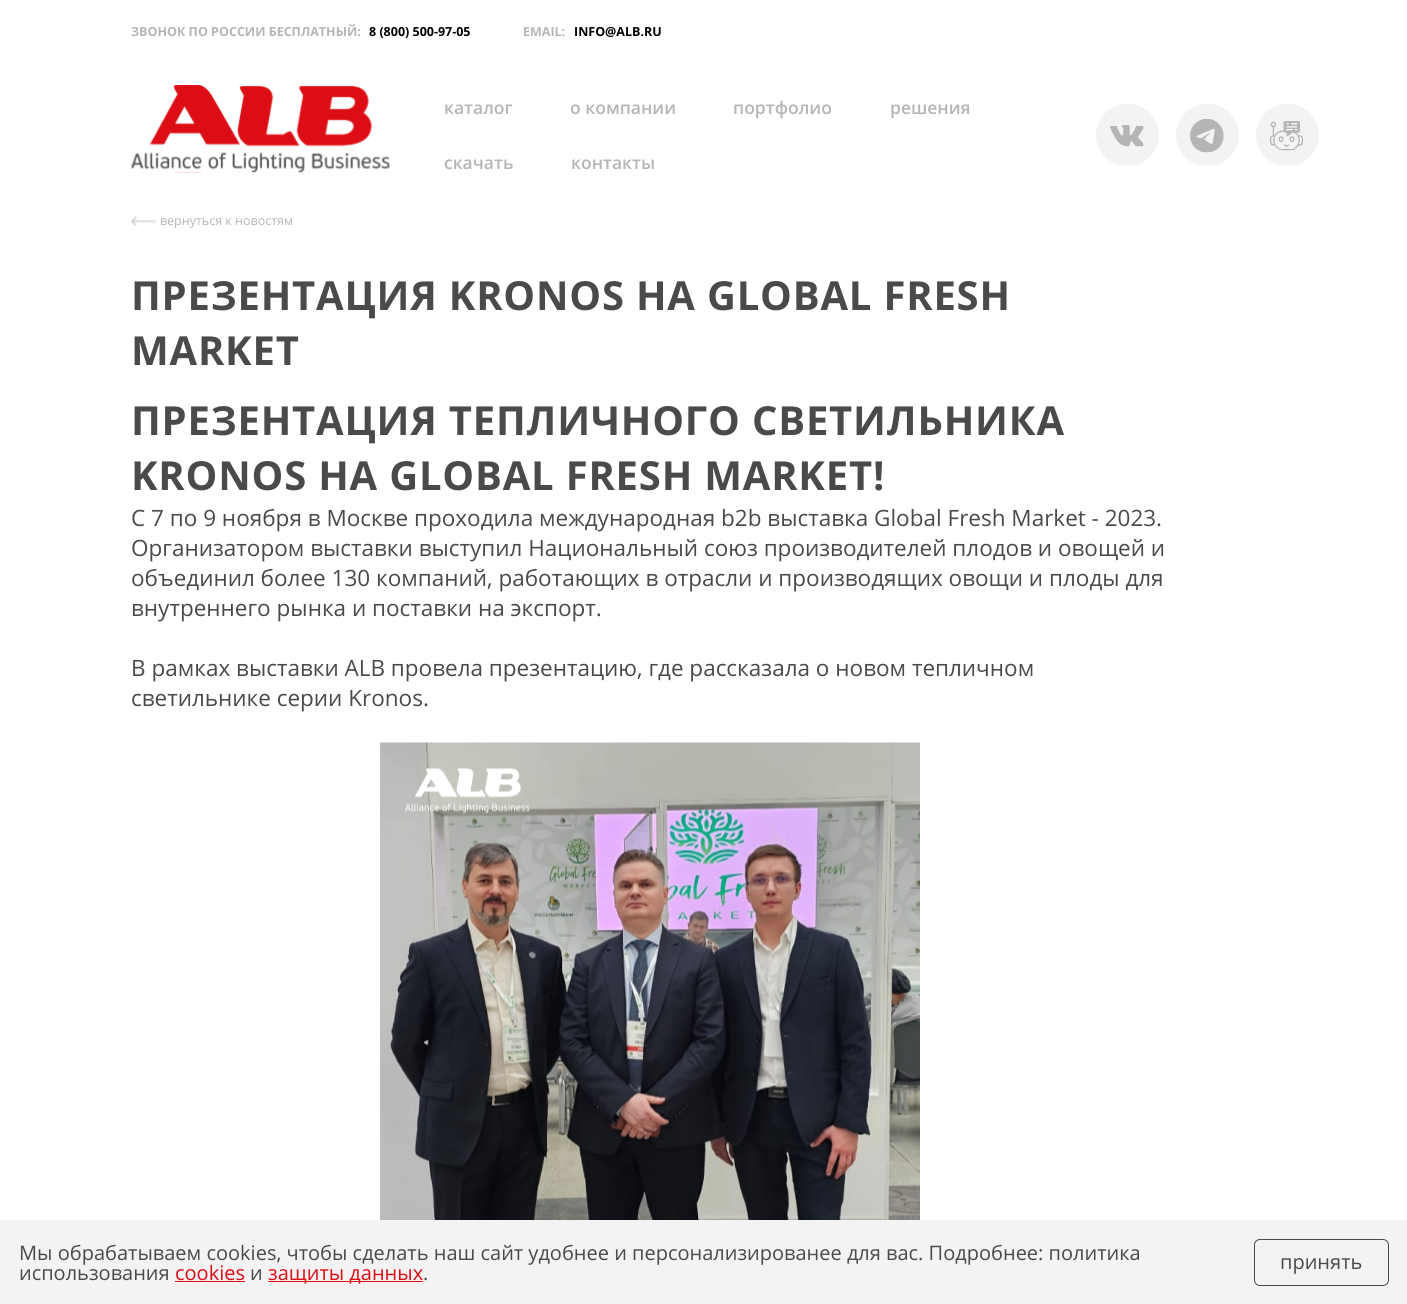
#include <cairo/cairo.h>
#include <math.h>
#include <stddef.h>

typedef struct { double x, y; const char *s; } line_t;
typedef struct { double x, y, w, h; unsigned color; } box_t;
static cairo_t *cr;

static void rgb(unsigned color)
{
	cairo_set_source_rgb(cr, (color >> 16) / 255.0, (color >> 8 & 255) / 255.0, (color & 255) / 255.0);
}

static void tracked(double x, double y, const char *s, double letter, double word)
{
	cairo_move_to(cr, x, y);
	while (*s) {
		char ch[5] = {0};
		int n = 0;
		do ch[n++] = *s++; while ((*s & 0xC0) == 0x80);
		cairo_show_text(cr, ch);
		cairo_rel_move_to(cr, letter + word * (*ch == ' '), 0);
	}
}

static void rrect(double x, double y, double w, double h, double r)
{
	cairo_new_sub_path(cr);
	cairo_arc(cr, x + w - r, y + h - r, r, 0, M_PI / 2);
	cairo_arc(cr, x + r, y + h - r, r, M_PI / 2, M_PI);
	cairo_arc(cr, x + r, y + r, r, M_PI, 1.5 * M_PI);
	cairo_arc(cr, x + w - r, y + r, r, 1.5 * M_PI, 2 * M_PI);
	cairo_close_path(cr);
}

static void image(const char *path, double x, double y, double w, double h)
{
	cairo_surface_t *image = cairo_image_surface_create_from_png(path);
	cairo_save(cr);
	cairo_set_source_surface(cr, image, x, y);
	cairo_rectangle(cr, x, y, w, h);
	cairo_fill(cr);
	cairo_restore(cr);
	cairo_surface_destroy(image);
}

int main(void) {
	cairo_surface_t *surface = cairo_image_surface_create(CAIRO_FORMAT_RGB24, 1407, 1304);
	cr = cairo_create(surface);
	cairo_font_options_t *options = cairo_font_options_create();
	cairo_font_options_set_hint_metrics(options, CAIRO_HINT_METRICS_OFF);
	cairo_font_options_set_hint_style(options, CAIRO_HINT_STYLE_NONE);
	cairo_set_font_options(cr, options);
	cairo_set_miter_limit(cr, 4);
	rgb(0xffffff);
	cairo_paint(cr);
	image("img/1.png", 131, 85, 259, 88);
	rgb(0xf4f3f3);
	rrect(1096, 104, 63, 62, 31);
	cairo_fill(cr);
	image("img/2.png", 1110, 125, 34, 22);
	rrect(1176, 104, 63, 62, 31);
	cairo_fill(cr);
	image("img/3.png", 1190, 119, 34, 34);
	rrect(1256, 104, 63, 62, 31);
	cairo_fill(cr);
	image("img/4.png", 1270, 121, 33, 30);
	image("img/5.png", 131, 216, 26, 11);
	image("img/6.png", 380, 742, 540, 478);
	{
		static const box_t items[] = {
			{0, 1220, 1407, 84, 0xf4f3f3},
			{175, 1281, 70, 1, 0xdc0d15},
			{268, 1281, 155, 1, 0xdc0d15},
		};
		for (size_t i = 0; i < sizeof items / sizeof *items; i++) {
			rgb(items[i].color);
			cairo_rectangle(cr, items[i].x, items[i].y, items[i].w, items[i].h);
			cairo_fill(cr);
		}
	}
	rrect(1254.5, 1239.5, 134, 46, 5.5);
	rgb(0x4a4a49);
	cairo_set_line_width(cr, 1);
	cairo_stroke(cr);
	cairo_select_font_face(cr, "Open Sans", CAIRO_FONT_SLANT_NORMAL, CAIRO_FONT_WEIGHT_BOLD);
	cairo_set_font_size(cr, 12.5);
	rgb(0xb5b5b5);
	cairo_move_to(cr, 131, 36);
	cairo_show_text(cr, "ЗВОНОК ПО РОССИИ БЕСПЛАТНЫЙ:");
	rgb(0x000000);
	cairo_move_to(cr, 369, 36);
	cairo_show_text(cr, "8 (800) 500-97-05");
	rgb(0xb5b5b5);
	cairo_move_to(cr, 523, 36);
	cairo_show_text(cr, "EMAIL:");
	rgb(0x000000);
	cairo_move_to(cr, 574, 36);
	cairo_show_text(cr, "INFO@ALB.RU");
	cairo_select_font_face(cr, "Open Sans SemiBold", CAIRO_FONT_SLANT_NORMAL, CAIRO_FONT_WEIGHT_NORMAL);
	cairo_set_font_size(cr, 17.5);
	rgb(0xb5b5b5);
	{
		static const line_t items[] = {
			{444, 114, "каталог"},
			{570, 114, "о компании"},
			{733, 114, "портфолио"},
			{890, 114, "решения"},
			{444, 169, "скачать"},
			{571, 169, "контакты"},
		};
		for (size_t i = 0; i < sizeof items / sizeof *items; i++) {
			cairo_move_to(cr, items[i].x, items[i].y);
			cairo_show_text(cr, items[i].s);
		}
	}
	cairo_select_font_face(cr, "Open Sans", CAIRO_FONT_SLANT_NORMAL, CAIRO_FONT_WEIGHT_NORMAL);
	cairo_set_font_size(cr, 12.5);
	cairo_move_to(cr, 160, 225);
	cairo_show_text(cr, "вернуться к новостям");
	cairo_select_font_face(cr, "Open Sans", CAIRO_FONT_SLANT_NORMAL, CAIRO_FONT_WEIGHT_BOLD);
	cairo_set_font_size(cr, 40);
	rgb(0x4a4a49);
	{
		static const line_t items[] = {
			{131, 310, "ПРЕЗЕНТАЦИЯ KRONOS НА GLOBAL FRESH"},
			{131, 365, "MARKET"},
			{131, 435, "ПРЕЗЕНТАЦИЯ ТЕПЛИЧНОГО СВЕТИЛЬНИКА"},
			{131, 490, "KRONOS НА GLOBAL FRESH MARKET!"},
		};
		for (size_t i = 0; i < sizeof items / sizeof *items; i++) {
			tracked(items[i].x, items[i].y, items[i].s, 0.8, 0);
		}
	}
	cairo_select_font_face(cr, "Open Sans", CAIRO_FONT_SLANT_NORMAL, CAIRO_FONT_WEIGHT_NORMAL);
	cairo_set_font_size(cr, 22.5);
	{
		static const line_t items[] = {
			{131, 526, "С 7 по 9 ноября в Москве проходила международная b2b выставка Global Fresh Market - 2023."},
			{131, 556, "Организатором выставки выступил Национальный союз производителей плодов и овощей и"},
			{131, 586, "объединил более 130 компаний, работающих в отрасли и производящих овощи и плоды для"},
			{131, 616, "внутреннего рынка и поставки на экспорт."},
			{131, 676, "В рамках выставки ALB провела презентацию, где рассказала о новом тепличном"},
			{131, 706, "светильнике серии Kronos."},
		};
		for (size_t i = 0; i < sizeof items / sizeof *items; i++) {
			cairo_move_to(cr, items[i].x, items[i].y);
			cairo_show_text(cr, items[i].s);
		}
	}
	cairo_set_font_size(cr, 20);
	cairo_move_to(cr, 19, 1260);
	cairo_show_text(cr, "Мы обрабатываем cookies, чтобы сделать наш сайт удобнее и персонализированее для вас. Подробнее: политика");
	cairo_move_to(cr, 19, 1280);
	cairo_show_text(cr, "использования");
	rgb(0xdc0d15);
	cairo_move_to(cr, 175, 1280);
	cairo_show_text(cr, "cookies");
	rgb(0x4a4a49);
	cairo_move_to(cr, 250, 1280);
	cairo_show_text(cr, "и");
	rgb(0xdc0d15);
	cairo_move_to(cr, 268, 1280);
	cairo_show_text(cr, "защиты данных");
	rgb(0x4a4a49);
	cairo_move_to(cr, 423, 1280);
	cairo_show_text(cr, ".");
	cairo_move_to(cr, 1280, 1269);
	cairo_show_text(cr, "принять");
	cairo_surface_write_to_png(surface, "page.png");
	cairo_font_options_destroy(options);
	cairo_destroy(cr);
	cairo_surface_destroy(surface);
	return 0;
}
